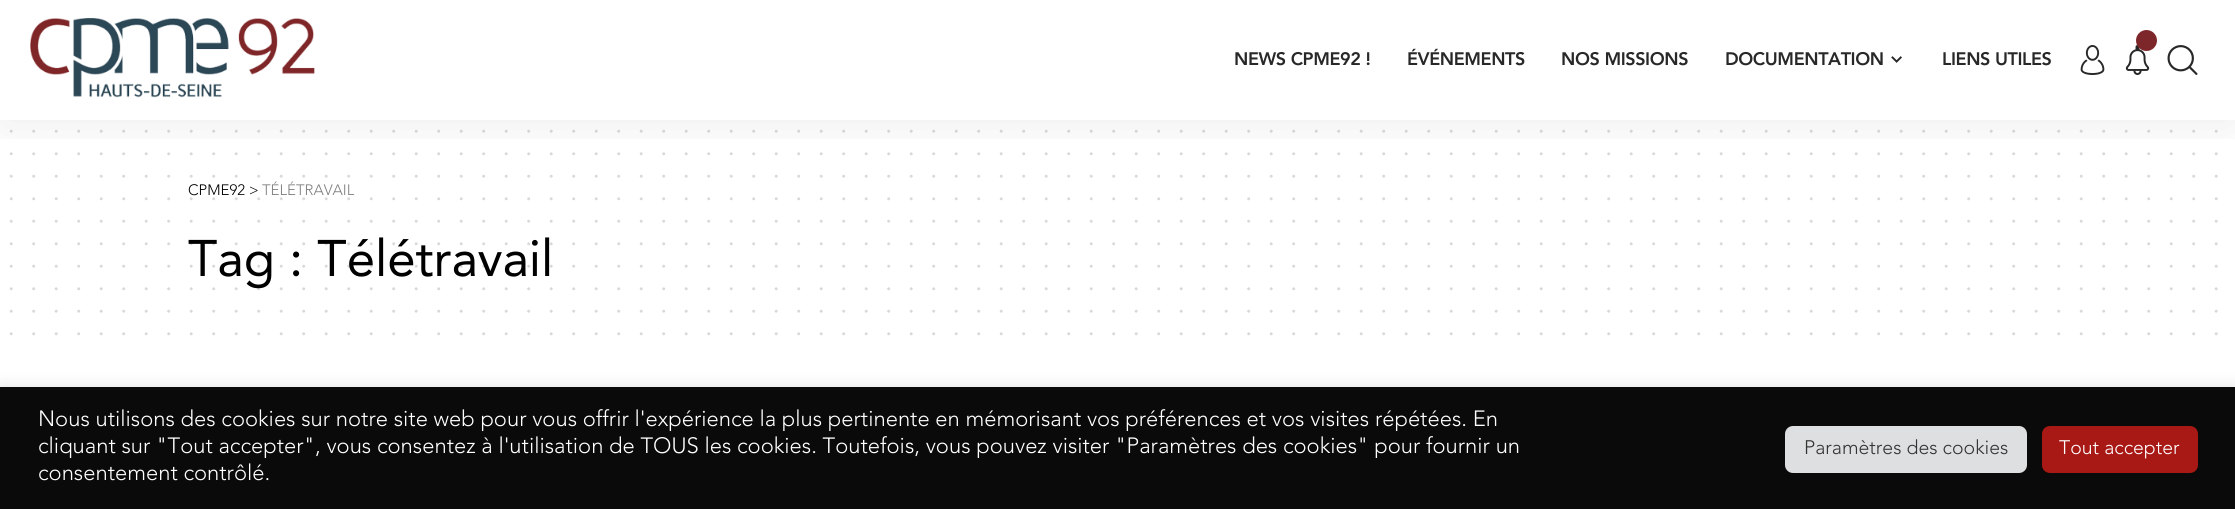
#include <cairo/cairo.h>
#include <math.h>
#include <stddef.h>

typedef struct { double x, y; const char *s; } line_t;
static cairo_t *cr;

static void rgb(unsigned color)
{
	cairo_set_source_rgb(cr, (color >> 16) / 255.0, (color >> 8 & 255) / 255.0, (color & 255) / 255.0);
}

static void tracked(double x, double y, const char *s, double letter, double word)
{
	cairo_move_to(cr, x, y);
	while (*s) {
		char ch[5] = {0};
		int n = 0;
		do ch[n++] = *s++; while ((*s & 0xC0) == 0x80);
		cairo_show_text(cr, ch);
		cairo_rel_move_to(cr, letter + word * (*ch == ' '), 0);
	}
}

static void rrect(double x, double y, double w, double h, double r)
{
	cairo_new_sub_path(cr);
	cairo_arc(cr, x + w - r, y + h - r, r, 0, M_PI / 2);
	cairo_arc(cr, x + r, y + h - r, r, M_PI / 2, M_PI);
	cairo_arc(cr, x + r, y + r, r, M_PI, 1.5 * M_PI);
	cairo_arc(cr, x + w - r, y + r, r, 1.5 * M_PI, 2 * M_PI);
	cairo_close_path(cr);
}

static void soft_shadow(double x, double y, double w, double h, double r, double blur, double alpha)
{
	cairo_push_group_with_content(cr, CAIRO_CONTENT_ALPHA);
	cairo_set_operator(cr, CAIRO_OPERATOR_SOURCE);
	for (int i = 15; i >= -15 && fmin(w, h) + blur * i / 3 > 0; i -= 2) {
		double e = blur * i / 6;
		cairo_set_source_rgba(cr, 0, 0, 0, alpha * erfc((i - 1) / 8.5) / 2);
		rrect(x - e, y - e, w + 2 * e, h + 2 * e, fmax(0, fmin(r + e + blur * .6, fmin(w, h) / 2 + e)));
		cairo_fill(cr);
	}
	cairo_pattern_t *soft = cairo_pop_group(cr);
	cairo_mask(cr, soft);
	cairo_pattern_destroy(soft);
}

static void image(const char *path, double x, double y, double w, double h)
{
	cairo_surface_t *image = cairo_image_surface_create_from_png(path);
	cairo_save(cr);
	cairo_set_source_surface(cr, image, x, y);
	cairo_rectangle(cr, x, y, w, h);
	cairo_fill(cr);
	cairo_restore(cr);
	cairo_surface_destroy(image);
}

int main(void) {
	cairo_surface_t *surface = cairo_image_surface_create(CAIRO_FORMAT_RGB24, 2235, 509);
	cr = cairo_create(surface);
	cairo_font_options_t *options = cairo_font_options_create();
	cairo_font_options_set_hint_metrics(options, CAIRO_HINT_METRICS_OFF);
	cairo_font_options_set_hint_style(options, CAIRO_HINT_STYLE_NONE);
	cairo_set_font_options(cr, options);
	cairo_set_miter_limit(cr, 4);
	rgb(0xffffff);
	cairo_paint(cr);
	cairo_new_path(cr);
	cairo_move_to(cr, 11.2, 131.2);
	cairo_line_to(cr, 2216.6, 131.2);
	rgb(0xd9d9d9);
	cairo_set_line_width(cr, 3);
	cairo_set_line_cap(cr, CAIRO_LINE_CAP_ROUND);
	cairo_set_dash(cr, (double[]){0, 22.5}, 2, 0);
	cairo_stroke(cr);
	cairo_new_path(cr);
	cairo_move_to(cr, 11.2, 153.8);
	cairo_line_to(cr, 2216.6, 153.8);
	cairo_stroke(cr);
	cairo_new_path(cr);
	cairo_move_to(cr, 11.2, 176.2);
	cairo_line_to(cr, 2216.6, 176.2);
	cairo_stroke(cr);
	cairo_save(cr);
	cairo_rectangle(cr, 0, 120, 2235, 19);
	cairo_clip(cr);
	rgb(0x000000);
	soft_shadow(0, 6, 2235, 120, 0, 22.5, 0.07);
	cairo_restore(cr);
	image("img/1.png", 30, 18, 285, 80);
	image("img/2.png", 1891, 56, 11, 7);
	image("img/3.png", 2080, 45, 25, 30);
	image("img/4.png", 2125, 45, 25, 30);
	rgb(0x7e272a);
	cairo_arc(cr, 2146.5, 40.5, 10.5, 0, 2 * M_PI);
	cairo_fill(cr);
	image("img/5.png", 2167, 45, 31, 30);
	cairo_new_path(cr);
	cairo_move_to(cr, 11.2, 198.8);
	cairo_line_to(cr, 2216.6, 198.8);
	rgb(0xd9d9d9);
	cairo_stroke(cr);
	cairo_new_path(cr);
	cairo_move_to(cr, 11.2, 221.2);
	cairo_line_to(cr, 2216.6, 221.2);
	cairo_stroke(cr);
	cairo_new_path(cr);
	cairo_move_to(cr, 11.2, 311.2);
	cairo_line_to(cr, 2216.6, 311.2);
	cairo_stroke(cr);
	cairo_new_path(cr);
	cairo_move_to(cr, 11.2, 333.8);
	cairo_line_to(cr, 2216.6, 333.8);
	cairo_stroke(cr);
	rgb(0xacabab);
	soft_shadow(0, 386, 2235, 123, 0, 7.5, 0.3);
	rgb(0x0a0a0a);
	cairo_rectangle(cr, 0, 387, 2235, 122);
	cairo_fill(cr);
	rgb(0xdedfe0);
	rrect(1785, 426, 242, 47, 8);
	cairo_fill(cr);
	rgb(0xa81815);
	rrect(2042, 426, 156, 47, 8);
	cairo_fill(cr);
	cairo_select_font_face(cr, "Avenir Black", CAIRO_FONT_SLANT_NORMAL, CAIRO_FONT_WEIGHT_NORMAL);
	cairo_set_font_size(cr, 18);
	rgb(0x282828);
	{
		static const line_t items[] = {
			{1234, 65, "NEWS CPME92 !"},
			{1407, 65, "ÉVÉNEMENTS"},
			{1561, 65, "NOS MISSIONS"},
			{1725, 65, "DOCUMENTATION"},
			{1942, 65, "LIENS UTILES"},
		};
		for (size_t i = 0; i < sizeof items / sizeof *items; i++) {
			tracked(items[i].x, items[i].y, items[i].s, -0.4, 0);
		}
	}
	cairo_select_font_face(cr, "Avenir Light", CAIRO_FONT_SLANT_NORMAL, CAIRO_FONT_WEIGHT_NORMAL);
	cairo_set_font_size(cr, 15);
	rgb(0x000000);
	cairo_move_to(cr, 188, 195);
	cairo_show_text(cr, "CPME92 >");
	rgb(0x808080);
	cairo_move_to(cr, 262, 195);
	cairo_show_text(cr, "TÉLÉTRAVAIL");
	cairo_select_font_face(cr, "Avenir", CAIRO_FONT_SLANT_NORMAL, CAIRO_FONT_WEIGHT_NORMAL);
	cairo_set_font_size(cr, 51);
	rgb(0x000000);
	cairo_move_to(cr, 188, 276);
	cairo_show_text(cr, "Tag : Télétravail");
	cairo_new_path(cr);
	cairo_move_to(cr, 11.2, 288.8);
	cairo_line_to(cr, 2216.6, 288.8);
	cairo_set_source_rgba(cr, 0, 0, 0, 0.15);
	cairo_stroke(cr);
	cairo_new_path(cr);
	cairo_move_to(cr, 11.2, 266.2);
	cairo_line_to(cr, 2216.6, 266.2);
	cairo_stroke(cr);
	cairo_new_path(cr);
	cairo_move_to(cr, 11.2, 243.8);
	cairo_line_to(cr, 2216.6, 243.8);
	cairo_stroke(cr);
	cairo_select_font_face(cr, "Avenir Light", CAIRO_FONT_SLANT_NORMAL, CAIRO_FONT_WEIGHT_NORMAL);
	cairo_set_font_size(cr, 22);
	rgb(0xffffff);
	{
		static const line_t items[] = {
			{38, 426, "Nous utilisons des cookies sur notre site web pour vous offrir l'expérience la plus pertinente en mémorisant vos préférences et vos visites répétées. En"},
			{38, 453, "cliquant sur \"Tout accepter\", vous consentez à l'utilisation de TOUS les cookies. Toutefois, vous pouvez visiter \"Paramètres des cookies\" pour fournir un"},
			{38, 480, "consentement contrôlé."},
		};
		for (size_t i = 0; i < sizeof items / sizeof *items; i++) {
			cairo_move_to(cr, items[i].x, items[i].y);
			cairo_show_text(cr, items[i].s);
		}
	}
	cairo_set_font_size(cr, 19.5);
	rgb(0x333333);
	cairo_move_to(cr, 1804, 454);
	cairo_show_text(cr, "Paramètres des cookies");
	rgb(0xffffff);
	cairo_move_to(cr, 2059, 454);
	cairo_show_text(cr, "Tout accepter");
	cairo_surface_write_to_png(surface, "page.png");
	cairo_font_options_destroy(options);
	cairo_destroy(cr);
	cairo_surface_destroy(surface);
	return 0;
}
